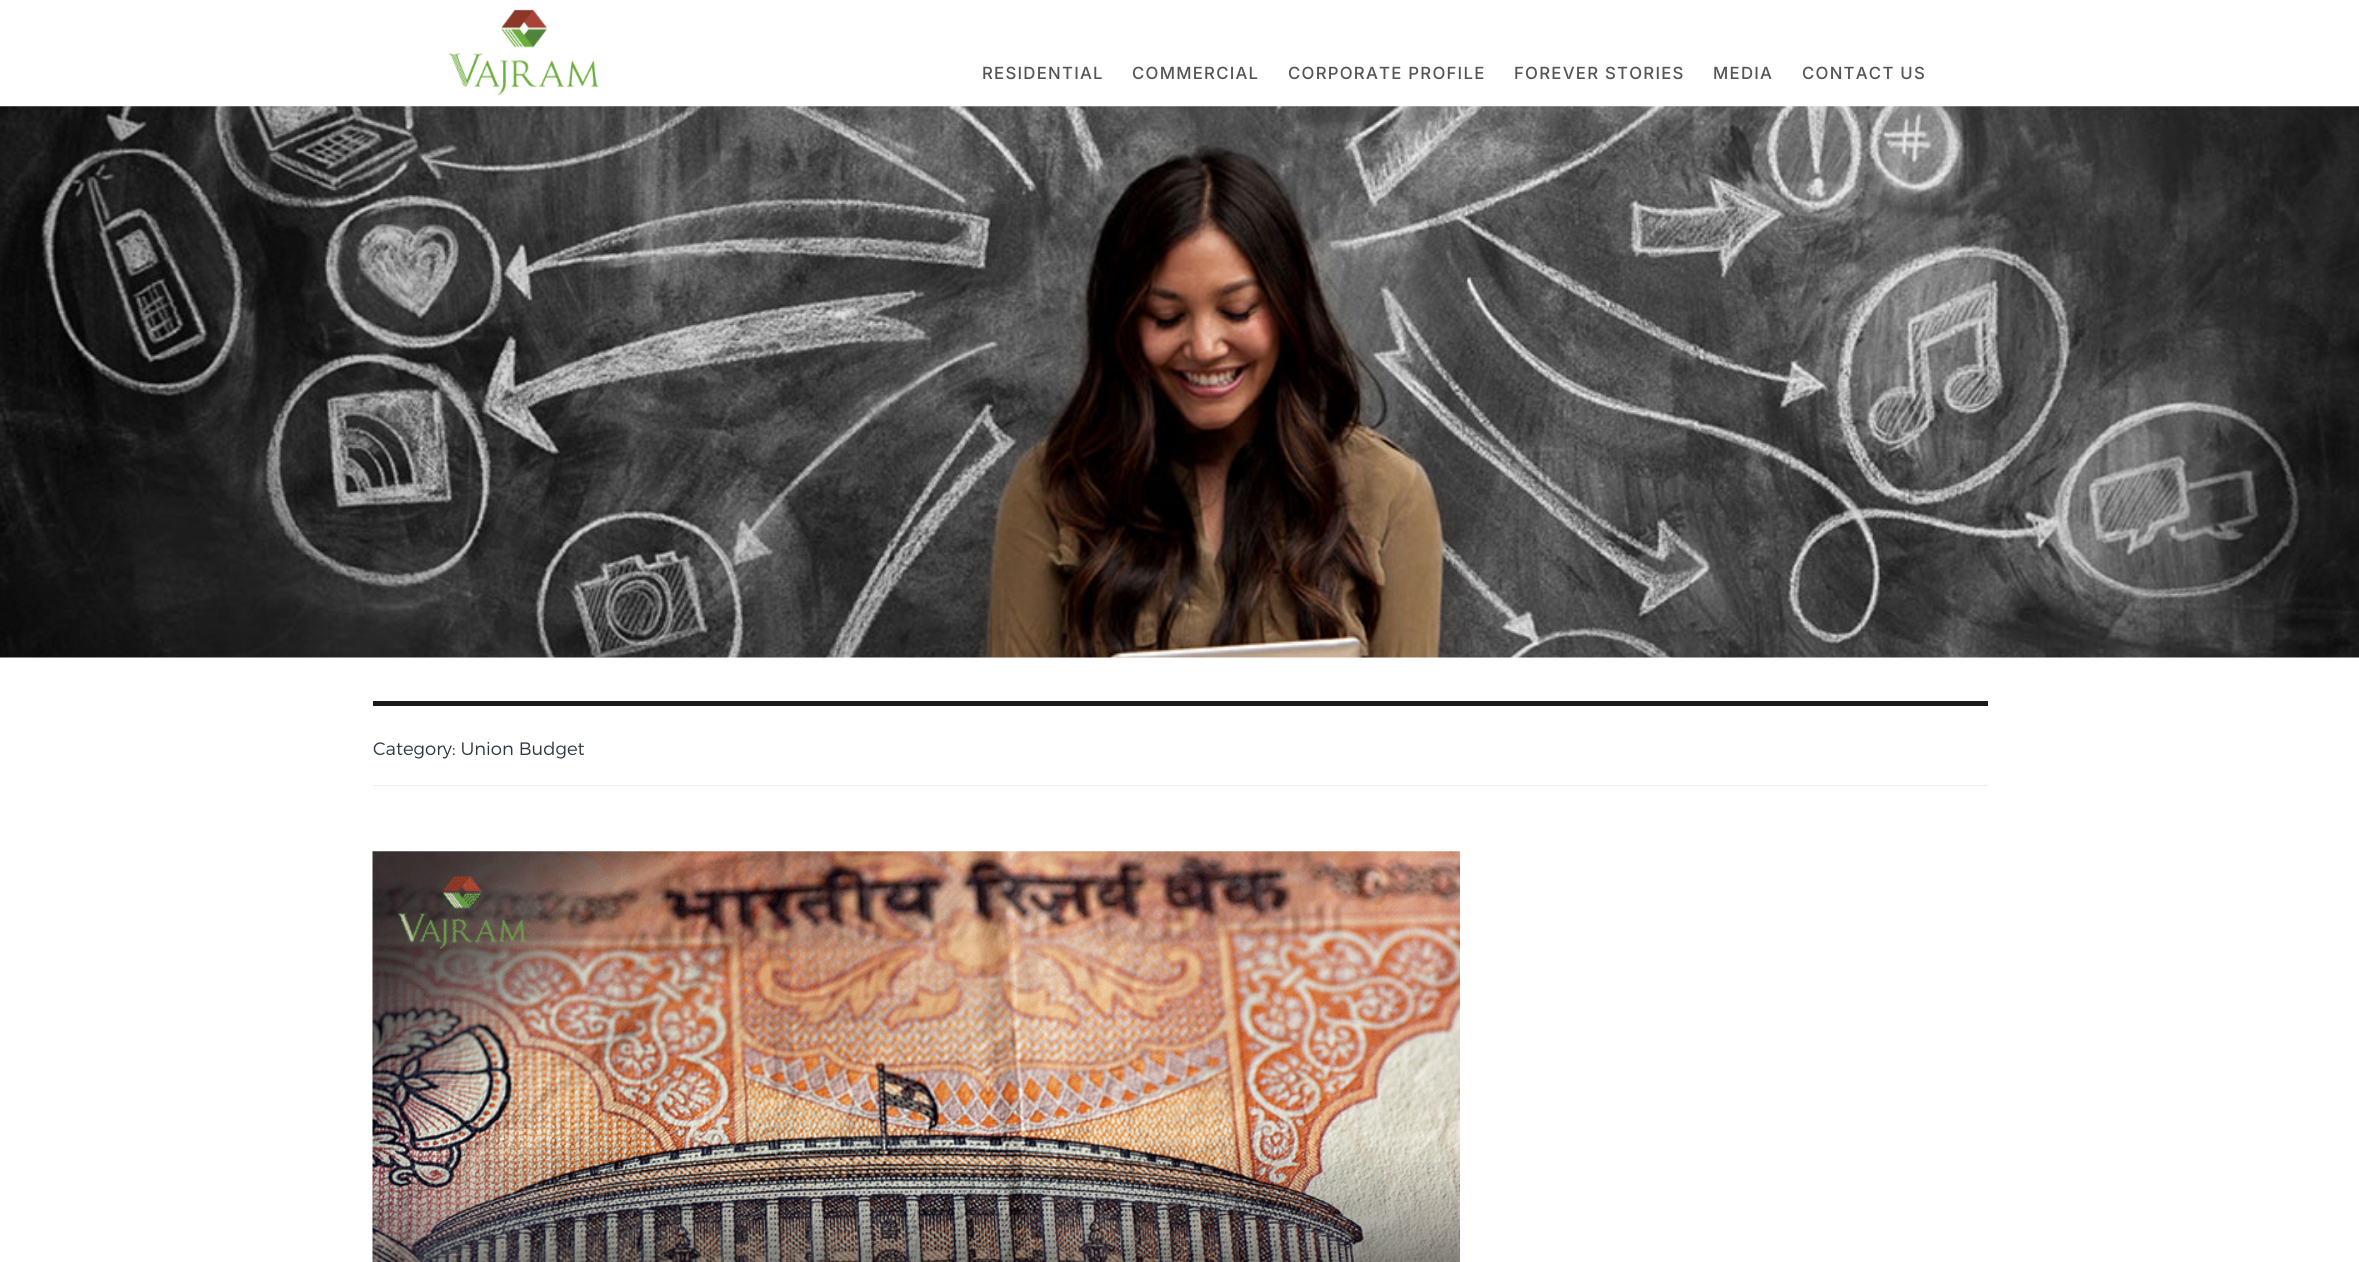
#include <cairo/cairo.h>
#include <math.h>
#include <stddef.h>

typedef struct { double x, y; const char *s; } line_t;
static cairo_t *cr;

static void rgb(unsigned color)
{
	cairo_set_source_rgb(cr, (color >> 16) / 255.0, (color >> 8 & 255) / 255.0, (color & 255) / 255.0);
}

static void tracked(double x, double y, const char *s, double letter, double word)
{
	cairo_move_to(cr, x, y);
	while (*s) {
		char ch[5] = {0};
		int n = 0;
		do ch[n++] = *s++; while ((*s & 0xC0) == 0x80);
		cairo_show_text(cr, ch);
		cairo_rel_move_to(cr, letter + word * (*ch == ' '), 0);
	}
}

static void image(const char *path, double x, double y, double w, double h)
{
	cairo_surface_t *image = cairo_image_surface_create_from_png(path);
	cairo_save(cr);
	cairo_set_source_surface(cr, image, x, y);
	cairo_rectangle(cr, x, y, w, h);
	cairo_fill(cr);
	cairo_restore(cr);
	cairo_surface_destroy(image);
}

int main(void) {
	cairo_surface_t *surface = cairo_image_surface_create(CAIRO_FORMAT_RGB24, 2359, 1262);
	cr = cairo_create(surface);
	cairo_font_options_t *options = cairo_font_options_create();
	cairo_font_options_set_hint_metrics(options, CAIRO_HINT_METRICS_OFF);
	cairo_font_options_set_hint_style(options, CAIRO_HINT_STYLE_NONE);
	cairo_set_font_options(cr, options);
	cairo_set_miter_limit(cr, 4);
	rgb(0xffffff);
	cairo_paint(cr);
	image("img/1.png", 448, 9, 151, 87);
	image("img/2.png", 0, 106, 2359, 552);
	rgb(0x1a1a1a);
	cairo_rectangle(cr, 373, 701, 1615, 5);
	cairo_fill(cr);
	rgb(0xeeeeee);
	cairo_rectangle(cr, 373, 785, 1615, 1);
	cairo_fill(cr);
	image("img/3.png", 372, 851, 1088, 411);
	cairo_select_font_face(cr, "Inter Medium", CAIRO_FONT_SLANT_NORMAL, CAIRO_FONT_WEIGHT_NORMAL);
	cairo_set_font_size(cr, 16.75);
	rgb(0x555555);
	{
		static const line_t items[] = {
			{982, 79, "RESIDENTIAL"},
			{1132, 79, "COMMERCIAL"},
			{1288, 79, "CORPORATE PROFILE"},
			{1514, 79, "FOREVER STORIES"},
			{1713, 79, "MEDIA"},
			{1802, 79, "CONTACT US"},
		};
		for (size_t i = 0; i < sizeof items / sizeof *items; i++) {
			tracked(items[i].x, items[i].y, items[i].s, 1.25, 0);
		}
	}
	cairo_select_font_face(cr, "Montserrat Light", CAIRO_FONT_SLANT_NORMAL, CAIRO_FONT_WEIGHT_NORMAL);
	cairo_set_font_size(cr, 18);
	rgb(0x2e3841);
	cairo_move_to(cr, 373, 755);
	cairo_show_text(cr, "Category: Union Budget");
	cairo_surface_write_to_png(surface, "page.png");
	cairo_font_options_destroy(options);
	cairo_destroy(cr);
	cairo_surface_destroy(surface);
	return 0;
}
